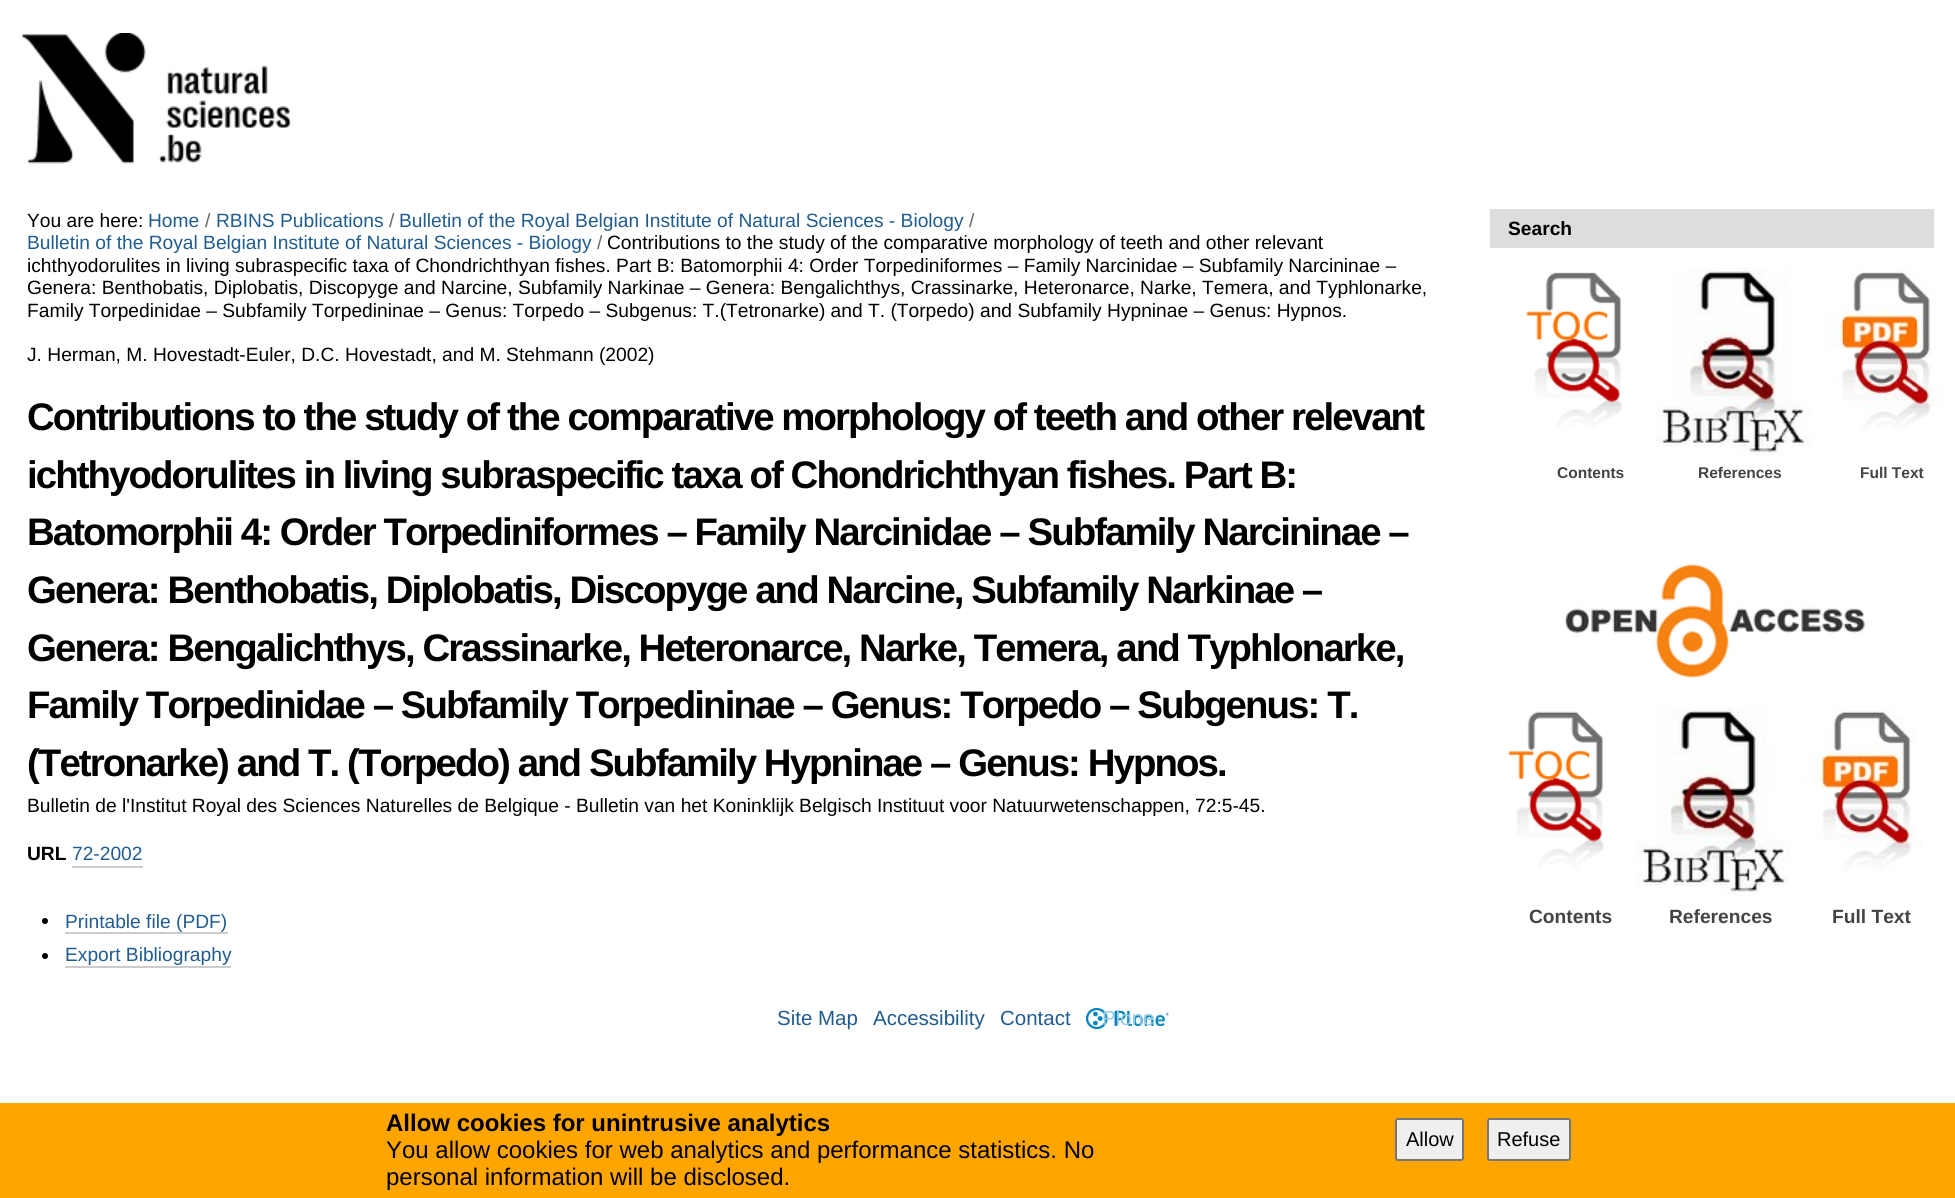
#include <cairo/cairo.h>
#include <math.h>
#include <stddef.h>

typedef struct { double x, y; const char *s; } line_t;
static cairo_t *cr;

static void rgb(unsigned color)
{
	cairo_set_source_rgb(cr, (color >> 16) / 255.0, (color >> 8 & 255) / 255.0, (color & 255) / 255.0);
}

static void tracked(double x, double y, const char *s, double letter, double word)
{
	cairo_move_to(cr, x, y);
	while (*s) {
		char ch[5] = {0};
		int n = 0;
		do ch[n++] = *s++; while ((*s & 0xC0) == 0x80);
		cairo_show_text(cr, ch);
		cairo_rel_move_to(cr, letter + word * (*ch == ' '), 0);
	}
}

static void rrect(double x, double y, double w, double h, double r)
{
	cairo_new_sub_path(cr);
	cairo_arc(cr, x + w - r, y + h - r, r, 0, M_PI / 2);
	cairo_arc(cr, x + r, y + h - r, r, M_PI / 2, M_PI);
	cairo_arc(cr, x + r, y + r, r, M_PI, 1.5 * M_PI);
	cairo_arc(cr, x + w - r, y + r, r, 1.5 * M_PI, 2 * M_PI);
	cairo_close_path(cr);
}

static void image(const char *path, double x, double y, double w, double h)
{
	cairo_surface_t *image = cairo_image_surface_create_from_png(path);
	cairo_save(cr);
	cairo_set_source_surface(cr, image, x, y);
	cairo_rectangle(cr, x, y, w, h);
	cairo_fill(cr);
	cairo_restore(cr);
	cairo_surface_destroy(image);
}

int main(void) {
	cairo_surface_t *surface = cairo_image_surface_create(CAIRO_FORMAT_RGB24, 1955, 1198);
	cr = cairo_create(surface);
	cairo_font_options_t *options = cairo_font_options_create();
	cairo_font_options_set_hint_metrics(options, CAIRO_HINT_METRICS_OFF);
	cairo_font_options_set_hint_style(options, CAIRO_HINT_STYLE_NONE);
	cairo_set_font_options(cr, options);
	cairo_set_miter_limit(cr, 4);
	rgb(0xffffff);
	cairo_paint(cr);
	image("img/1.png", 22, 33, 270, 131);
	rgb(0xcccccc);
	cairo_rectangle(cr, 72, 866, 71, 2);
	cairo_fill(cr);
	rgb(0x000000);
	cairo_arc(cr, 45, 921, 3, 0, 2 * M_PI);
	cairo_fill(cr);
	rgb(0xcccccc);
	cairo_rectangle(cr, 65, 932, 163, 2);
	cairo_fill(cr);
	rgb(0x000000);
	cairo_arc(cr, 45, 956, 3, 0, 2 * M_PI);
	cairo_fill(cr);
	rgb(0xcccccc);
	cairo_rectangle(cr, 65, 966, 166, 2);
	cairo_fill(cr);
	rgb(0xdddddd);
	cairo_rectangle(cr, 1490, 209, 444, 39);
	cairo_fill(cr);
	image("img/2.png", 1526, 272, 96, 157);
	image("img/3.png", 1656, 267, 155, 190);
	image("img/4.png", 1824, 267, 120, 164);
	image("img/5.png", 1565, 564, 300, 114);
	image("img/6.png", 1508, 711, 96, 158);
	image("img/7.png", 1636, 706, 155, 191);
	image("img/8.png", 1804, 707, 121, 164);
	image("img/9.png", 1086, 1008, 83, 21);
	rgb(0xffa500);
	cairo_rectangle(cr, 0, 1103, 1955, 95);
	cairo_fill(cr);
	rgb(0xefefef);
	rrect(1396, 1119, 67, 41, 2);
	cairo_fill_preserve(cr);
	rgb(0x767676);
	cairo_stroke(cr);
	rgb(0xefefef);
	rrect(1488, 1119, 82, 41, 2);
	cairo_fill_preserve(cr);
	rgb(0x767676);
	cairo_stroke(cr);
	cairo_select_font_face(cr, "Liberation Sans", CAIRO_FONT_SLANT_NORMAL, CAIRO_FONT_WEIGHT_NORMAL);
	cairo_set_font_size(cr, 19.2);
	rgb(0x000000);
	cairo_move_to(cr, 27, 227);
	cairo_show_text(cr, "You are here:");
	rgb(0x205c90);
	cairo_move_to(cr, 148, 227);
	cairo_show_text(cr, "Home");
	rgb(0x666666);
	cairo_move_to(cr, 205, 227);
	cairo_show_text(cr, "/");
	rgb(0x205c90);
	cairo_move_to(cr, 216, 227);
	cairo_show_text(cr, "RBINS Publications");
	rgb(0x666666);
	cairo_move_to(cr, 389, 227);
	cairo_show_text(cr, "/");
	rgb(0x205c90);
	cairo_move_to(cr, 399, 227);
	cairo_show_text(cr, "Bulletin of the Royal Belgian Institute of Natural Sciences - Biology");
	rgb(0x666666);
	cairo_move_to(cr, 969, 227);
	cairo_show_text(cr, "/");
	rgb(0x205c90);
	cairo_move_to(cr, 27, 249);
	cairo_show_text(cr, "Bulletin of the Royal Belgian Institute of Natural Sciences - Biology");
	rgb(0x666666);
	cairo_move_to(cr, 597, 249);
	cairo_show_text(cr, "/");
	rgb(0x000000);
	{
		static const line_t items[] = {
			{607, 249, "Contributions to the study of the comparative morphology of teeth and other relevant"},
			{27, 272, "ichthyodorulites in living subraspecific taxa of Chondrichthyan fishes. Part B: Batomorphii 4: Order Torpediniformes – Family Narcinidae – Subfamily Narcininae –"},
			{27, 294, "Genera: Benthobatis, Diplobatis, Discopyge and Narcine, Subfamily Narkinae – Genera: Bengalichthys, Crassinarke, Heteronarce, Narke, Temera, and Typhlonarke,"},
			{27, 317, "Family Torpedinidae – Subfamily Torpedininae – Genus: Torpedo – Subgenus: T.(Tetronarke) and T. (Torpedo) and Subfamily Hypninae – Genus: Hypnos."},
			{27, 361, "J. Herman, M. Hovestadt-Euler, D.C. Hovestadt, and M. Stehmann (2002)"},
		};
		for (size_t i = 0; i < sizeof items / sizeof *items; i++) {
			cairo_move_to(cr, items[i].x, items[i].y);
			cairo_show_text(cr, items[i].s);
		}
	}
	cairo_select_font_face(cr, "Liberation Sans", CAIRO_FONT_SLANT_NORMAL, CAIRO_FONT_WEIGHT_BOLD);
	cairo_set_font_size(cr, 38.4);
	{
		static const line_t items[] = {
			{27, 430, "Contributions to the study of the comparative morphology of teeth and other relevant"},
			{27, 488, "ichthyodorulites in living subraspecific taxa of Chondrichthyan fishes. Part B:"},
			{27, 545, "Batomorphii 4: Order Torpediniformes – Family Narcinidae – Subfamily Narcininae –"},
			{27, 603, "Genera: Benthobatis, Diplobatis, Discopyge and Narcine, Subfamily Narkinae –"},
			{27, 661, "Genera: Bengalichthys, Crassinarke, Heteronarce, Narke, Temera, and Typhlonarke,"},
			{27, 718, "Family Torpedinidae – Subfamily Torpedininae – Genus: Torpedo – Subgenus: T."},
			{27, 776, "(Tetronarke) and T. (Torpedo) and Subfamily Hypninae – Genus: Hypnos."},
		};
		for (size_t i = 0; i < sizeof items / sizeof *items; i++) {
			tracked(items[i].x, items[i].y, items[i].s, -1.92, 0);
		}
	}
	cairo_select_font_face(cr, "Liberation Sans", CAIRO_FONT_SLANT_NORMAL, CAIRO_FONT_WEIGHT_NORMAL);
	cairo_set_font_size(cr, 19.2);
	cairo_move_to(cr, 27, 812);
	cairo_show_text(cr, "Bulletin de l'Institut Royal des Sciences Naturelles de Belgique - Bulletin van het Koninklijk Belgisch Instituut voor Natuurwetenschappen, 72:5-45.");
	cairo_select_font_face(cr, "Liberation Sans", CAIRO_FONT_SLANT_NORMAL, CAIRO_FONT_WEIGHT_BOLD);
	cairo_move_to(cr, 27, 860);
	cairo_show_text(cr, "URL");
	cairo_select_font_face(cr, "Liberation Sans", CAIRO_FONT_SLANT_NORMAL, CAIRO_FONT_WEIGHT_NORMAL);
	rgb(0x205c90);
	{
		static const line_t items[] = {
			{72, 860, "72-2002"},
			{65, 928, "Printable file (PDF)"},
			{65, 961, "Export Bibliography"},
		};
		for (size_t i = 0; i < sizeof items / sizeof *items; i++) {
			cairo_move_to(cr, items[i].x, items[i].y);
			cairo_show_text(cr, items[i].s);
		}
	}
	cairo_select_font_face(cr, "Liberation Sans", CAIRO_FONT_SLANT_NORMAL, CAIRO_FONT_WEIGHT_BOLD);
	rgb(0x000000);
	cairo_move_to(cr, 1508, 235);
	cairo_show_text(cr, "Search");
	cairo_set_font_size(cr, 15.5);
	rgb(0x444444);
	{
		static const line_t items[] = {
			{1557, 478, "Contents"},
			{1698, 478, "References"},
			{1860, 478, "Full Text"},
		};
		for (size_t i = 0; i < sizeof items / sizeof *items; i++) {
			cairo_move_to(cr, items[i].x, items[i].y);
			cairo_show_text(cr, items[i].s);
		}
	}
	cairo_set_font_size(cr, 19.2);
	{
		static const line_t items[] = {
			{1529, 923, "Contents"},
			{1669, 923, "References"},
			{1832, 923, "Full Text"},
		};
		for (size_t i = 0; i < sizeof items / sizeof *items; i++) {
			cairo_move_to(cr, items[i].x, items[i].y);
			cairo_show_text(cr, items[i].s);
		}
	}
	cairo_select_font_face(cr, "Liberation Sans", CAIRO_FONT_SLANT_NORMAL, CAIRO_FONT_WEIGHT_NORMAL);
	cairo_set_font_size(cr, 20.5);
	rgb(0x205c90);
	{
		static const line_t items[] = {
			{777, 1025, "Site Map"},
			{873, 1025, "Accessibility"},
			{1000, 1025, "Contact"},
		};
		for (size_t i = 0; i < sizeof items / sizeof *items; i++) {
			cairo_move_to(cr, items[i].x, items[i].y);
			cairo_show_text(cr, items[i].s);
		}
	}
	rgb(0x95cbe3);
	cairo_move_to(cr, 1102, 1025);
	cairo_show_text(cr, "Plone");
	cairo_select_font_face(cr, "Liberation Sans", CAIRO_FONT_SLANT_NORMAL, CAIRO_FONT_WEIGHT_BOLD);
	cairo_set_font_size(cr, 24);
	rgb(0x000000);
	cairo_move_to(cr, 386, 1131);
	cairo_show_text(cr, "Allow cookies for unintrusive analytics");
	cairo_select_font_face(cr, "Liberation Sans", CAIRO_FONT_SLANT_NORMAL, CAIRO_FONT_WEIGHT_NORMAL);
	cairo_move_to(cr, 386, 1158);
	cairo_show_text(cr, "You allow cookies for web analytics and performance statistics. No");
	cairo_move_to(cr, 386, 1185);
	cairo_show_text(cr, "personal information will be disclosed.");
	cairo_set_font_size(cr, 20);
	cairo_move_to(cr, 1406, 1146);
	cairo_show_text(cr, "Allow");
	cairo_move_to(cr, 1497, 1146);
	cairo_show_text(cr, "Refuse");
	cairo_surface_write_to_png(surface, "page.png");
	cairo_font_options_destroy(options);
	cairo_destroy(cr);
	cairo_surface_destroy(surface);
	return 0;
}
